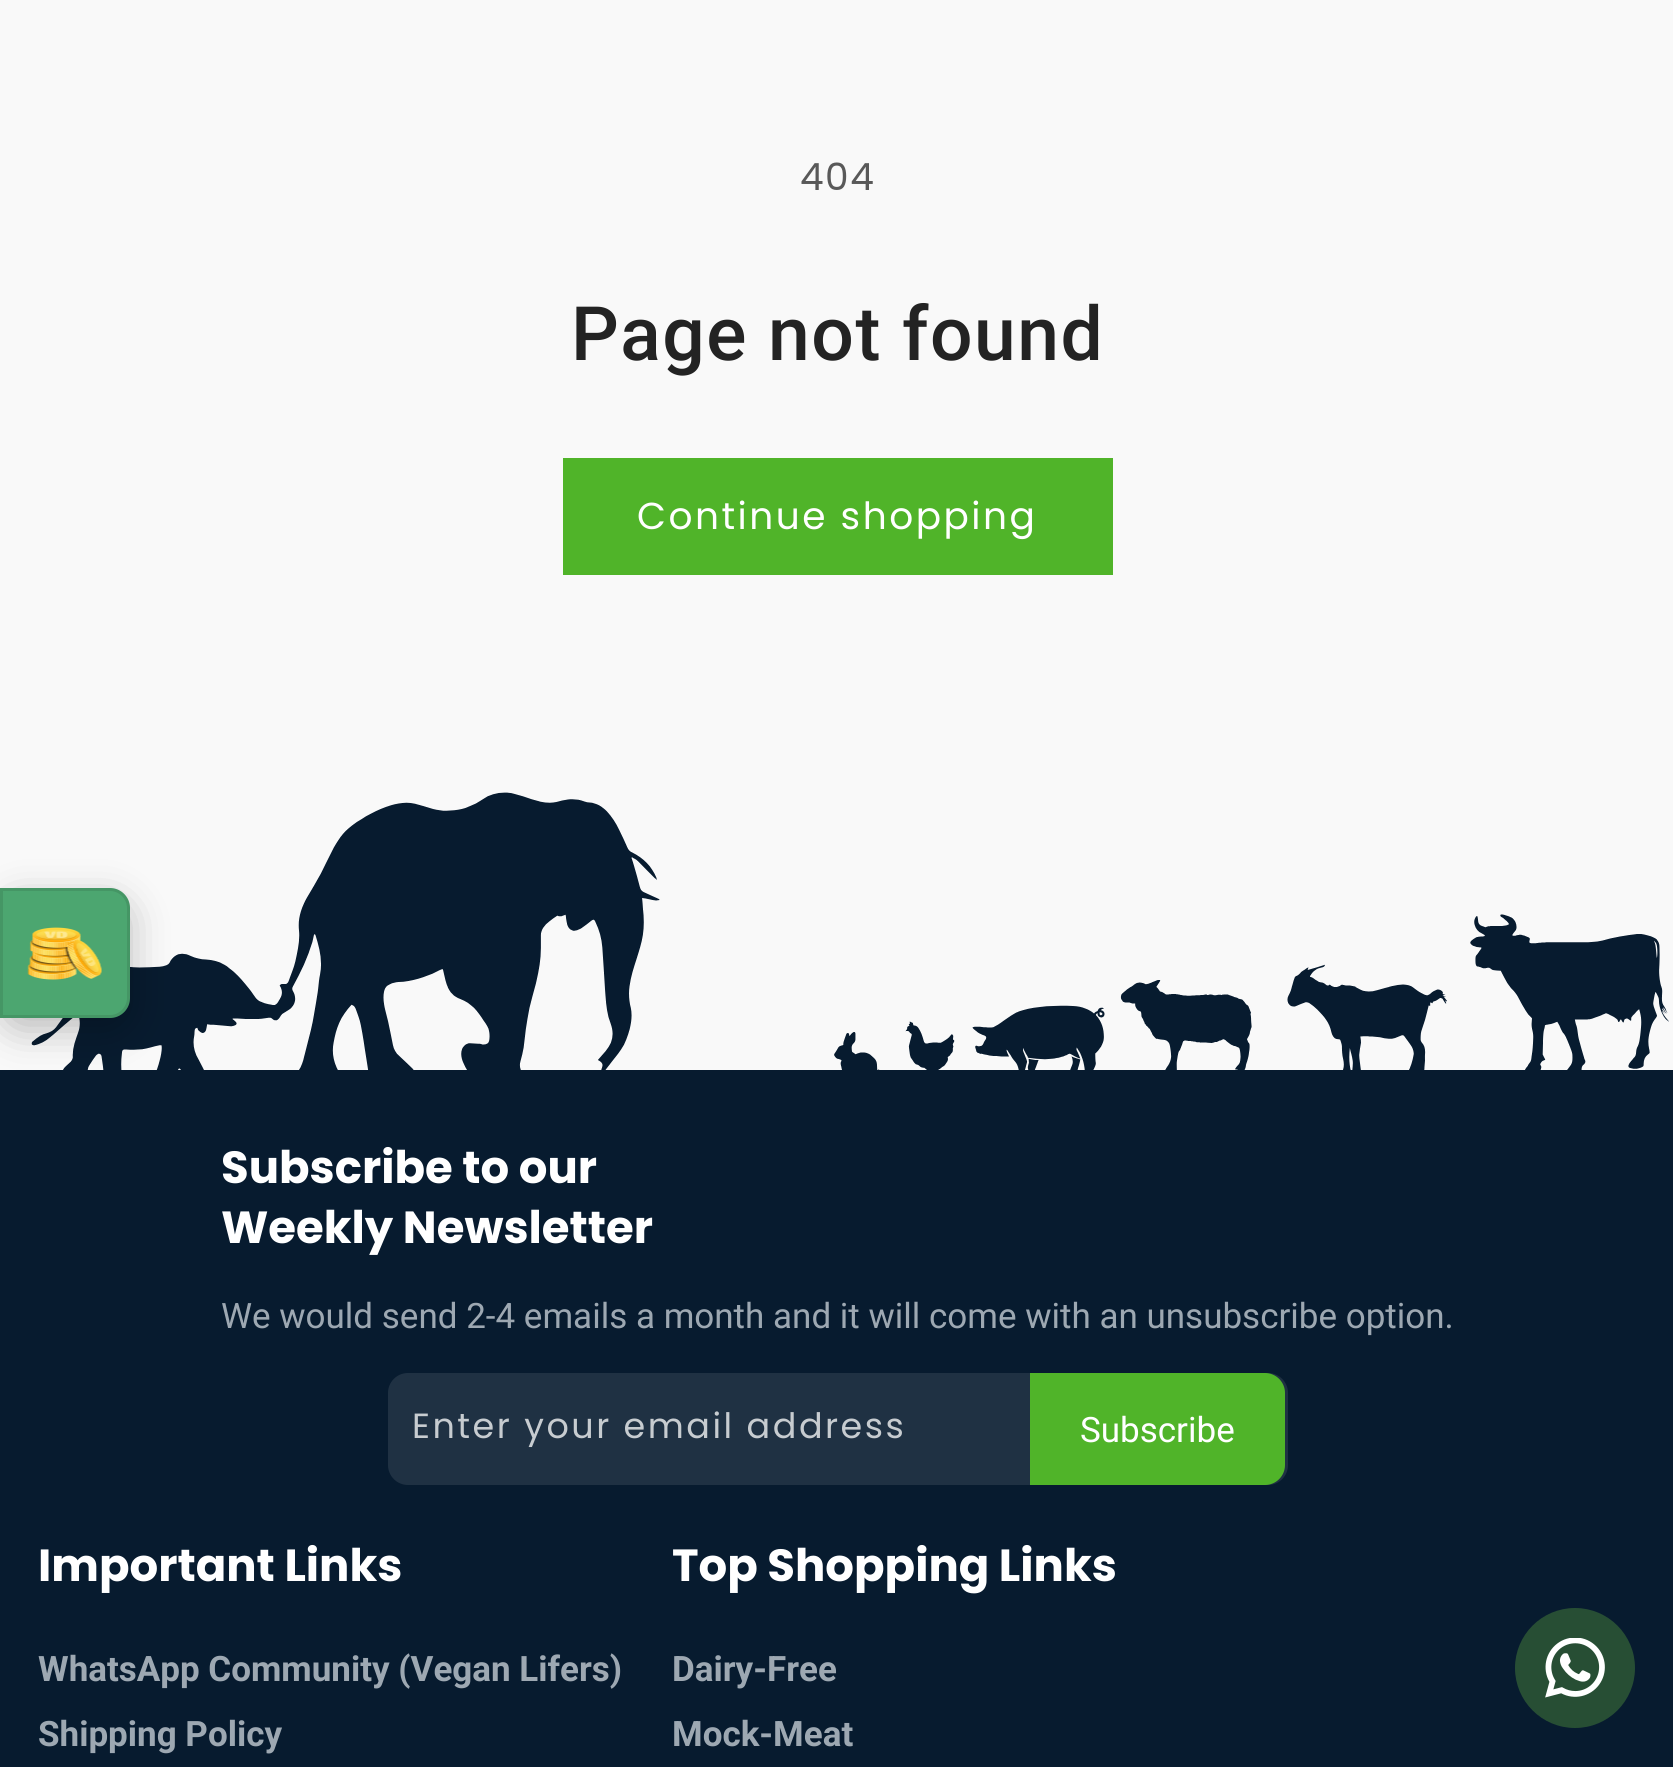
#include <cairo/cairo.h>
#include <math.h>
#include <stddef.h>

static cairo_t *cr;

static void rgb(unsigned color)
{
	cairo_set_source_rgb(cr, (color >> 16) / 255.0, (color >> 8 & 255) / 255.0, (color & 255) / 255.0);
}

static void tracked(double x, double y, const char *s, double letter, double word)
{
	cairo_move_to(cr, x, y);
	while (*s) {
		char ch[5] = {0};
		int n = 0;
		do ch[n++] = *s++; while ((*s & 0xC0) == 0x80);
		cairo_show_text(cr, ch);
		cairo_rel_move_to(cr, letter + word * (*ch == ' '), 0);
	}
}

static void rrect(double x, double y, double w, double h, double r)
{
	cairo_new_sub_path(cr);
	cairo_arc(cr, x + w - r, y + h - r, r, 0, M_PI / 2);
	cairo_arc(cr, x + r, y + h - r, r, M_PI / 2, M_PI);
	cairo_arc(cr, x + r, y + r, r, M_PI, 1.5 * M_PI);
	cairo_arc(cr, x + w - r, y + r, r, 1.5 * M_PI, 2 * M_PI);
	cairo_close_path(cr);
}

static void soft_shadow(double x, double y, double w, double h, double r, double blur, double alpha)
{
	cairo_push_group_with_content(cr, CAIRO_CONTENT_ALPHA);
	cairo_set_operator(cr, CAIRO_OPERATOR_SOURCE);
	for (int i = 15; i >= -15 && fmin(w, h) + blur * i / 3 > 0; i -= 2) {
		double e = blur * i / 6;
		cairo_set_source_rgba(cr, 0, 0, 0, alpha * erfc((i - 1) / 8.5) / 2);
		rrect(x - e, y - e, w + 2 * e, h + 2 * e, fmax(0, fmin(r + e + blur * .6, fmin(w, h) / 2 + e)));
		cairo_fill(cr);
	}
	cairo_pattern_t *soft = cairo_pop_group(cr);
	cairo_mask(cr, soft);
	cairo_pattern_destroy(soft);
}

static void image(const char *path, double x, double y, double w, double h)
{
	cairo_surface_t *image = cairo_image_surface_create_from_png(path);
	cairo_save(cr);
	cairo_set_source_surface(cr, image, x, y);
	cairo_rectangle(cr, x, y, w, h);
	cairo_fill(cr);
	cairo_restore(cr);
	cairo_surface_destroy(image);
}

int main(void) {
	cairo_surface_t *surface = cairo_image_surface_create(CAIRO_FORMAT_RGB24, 1673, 1767);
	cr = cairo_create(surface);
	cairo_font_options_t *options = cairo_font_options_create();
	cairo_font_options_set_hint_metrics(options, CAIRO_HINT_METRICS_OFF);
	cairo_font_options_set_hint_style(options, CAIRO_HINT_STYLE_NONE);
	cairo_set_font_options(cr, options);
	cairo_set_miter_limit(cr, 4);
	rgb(0xf9f9f9);
	cairo_paint(cr);
	rgb(0x50b429);
	cairo_rectangle(cr, 563, 458, 550, 117);
	cairo_fill(cr);
	image("img/2.png", 31, 792, 1638, 278);
	rgb(0x071b2f);
	cairo_rectangle(cr, 0, 1070, 1673, 697);
	cairo_fill(cr);
	rgb(0x000000);
	soft_shadow(0, 900, 130, 130, 20, 19, 0.25);
	rgb(0x4ca670);
	cairo_new_path(cr);
	cairo_move_to(cr, 0, 888);
	cairo_line_to(cr, 110, 888);
	cairo_curve_to(cr, 121, 888, 130, 897, 130, 908);
	cairo_line_to(cr, 130, 998);
	cairo_curve_to(cr, 130, 1009, 121, 1018, 110, 1018);
	cairo_line_to(cr, 0, 1018);
	cairo_close_path(cr);
	cairo_fill(cr);
	cairo_new_path(cr);
	cairo_move_to(cr, 1.5, 889.5);
	cairo_line_to(cr, 110, 889.5);
	cairo_curve_to(cr, 120, 889.5, 128.5, 898, 128.5, 908);
	cairo_line_to(cr, 128.5, 998);
	cairo_curve_to(cr, 128.5, 1008, 120, 1016.5, 110, 1016.5);
	cairo_line_to(cr, 1.5, 1016.5);
	cairo_close_path(cr);
	cairo_set_source_rgba(cr, 0, 0, 0, 0.1);
	cairo_set_line_width(cr, 3);
	cairo_stroke(cr);
	image("img/1.png", 27, 927, 75, 53);
	rgb(0x1f3143);
	rrect(388, 1373, 900, 112, 20);
	cairo_fill(cr);
	rgb(0x50b429);
	cairo_new_path(cr);
	cairo_move_to(cr, 1030, 1373);
	cairo_line_to(cr, 1265, 1373);
	cairo_curve_to(cr, 1276, 1373, 1285, 1382, 1285, 1393);
	cairo_line_to(cr, 1285, 1465);
	cairo_curve_to(cr, 1285, 1476, 1276, 1485, 1265, 1485);
	cairo_line_to(cr, 1030, 1485);
	cairo_close_path(cr);
	cairo_fill(cr);
	rgb(0x274e34);
	cairo_arc(cr, 1575, 1668, 60, 0, 2 * M_PI);
	cairo_fill(cr);
	image("img/3.png", 1545, 1638, 60, 60);
	cairo_select_font_face(cr, "Poppins", CAIRO_FONT_SLANT_NORMAL, CAIRO_FONT_WEIGHT_NORMAL);
	cairo_set_font_size(cr, 37.5);
	rgb(0x595959);
	tracked(800, 190, "404", 1.5, 0);
	cairo_select_font_face(cr, "Roboto Medium", CAIRO_FONT_SLANT_NORMAL, CAIRO_FONT_WEIGHT_NORMAL);
	cairo_set_font_size(cr, 75);
	rgb(0x232323);
	tracked(571, 360, "Page not found", 1.5, 0);
	cairo_select_font_face(cr, "Poppins", CAIRO_FONT_SLANT_NORMAL, CAIRO_FONT_WEIGHT_NORMAL);
	cairo_set_font_size(cr, 37.5);
	rgb(0xffffff);
	tracked(637, 529, "Continue shopping", 2.5, 0);
	cairo_select_font_face(cr, "Poppins", CAIRO_FONT_SLANT_NORMAL, CAIRO_FONT_WEIGHT_BOLD);
	cairo_set_font_size(cr, 45);
	cairo_move_to(cr, 221, 1183);
	cairo_show_text(cr, "Subscribe to our");
	cairo_move_to(cr, 221, 1243);
	cairo_show_text(cr, "Weekly Newsletter");
	cairo_select_font_face(cr, "Roboto", CAIRO_FONT_SLANT_NORMAL, CAIRO_FONT_WEIGHT_NORMAL);
	cairo_set_font_size(cr, 35);
	rgb(0x9da8b2);
	cairo_move_to(cr, 221, 1328);
	cairo_show_text(cr, "We would send 2-4 emails a month and it will come with an unsubscribe option.");
	cairo_select_font_face(cr, "Poppins", CAIRO_FONT_SLANT_NORMAL, CAIRO_FONT_WEIGHT_NORMAL);
	rgb(0xc7ccd0);
	tracked(412, 1438, "Enter your email address", 2.5, 0);
	cairo_select_font_face(cr, "Roboto", CAIRO_FONT_SLANT_NORMAL, CAIRO_FONT_WEIGHT_NORMAL);
	rgb(0xffffff);
	cairo_move_to(cr, 1080, 1442);
	cairo_show_text(cr, "Subscribe");
	cairo_select_font_face(cr, "Poppins", CAIRO_FONT_SLANT_NORMAL, CAIRO_FONT_WEIGHT_BOLD);
	cairo_set_font_size(cr, 45);
	cairo_move_to(cr, 38, 1581);
	cairo_show_text(cr, "Important Links");
	cairo_select_font_face(cr, "Roboto", CAIRO_FONT_SLANT_NORMAL, CAIRO_FONT_WEIGHT_BOLD);
	cairo_set_font_size(cr, 35);
	rgb(0x9da8b2);
	cairo_move_to(cr, 38, 1681);
	cairo_show_text(cr, "WhatsApp Community (Vegan Lifers)");
	cairo_move_to(cr, 38, 1746);
	cairo_show_text(cr, "Shipping Policy");
	cairo_select_font_face(cr, "Poppins", CAIRO_FONT_SLANT_NORMAL, CAIRO_FONT_WEIGHT_BOLD);
	cairo_set_font_size(cr, 45);
	rgb(0xffffff);
	cairo_move_to(cr, 672, 1581);
	cairo_show_text(cr, "Top Shopping Links");
	cairo_select_font_face(cr, "Roboto", CAIRO_FONT_SLANT_NORMAL, CAIRO_FONT_WEIGHT_BOLD);
	cairo_set_font_size(cr, 35);
	rgb(0x9da8b2);
	cairo_move_to(cr, 672, 1681);
	cairo_show_text(cr, "Dairy-Free");
	cairo_move_to(cr, 672, 1746);
	cairo_show_text(cr, "Mock-Meat");
	cairo_surface_write_to_png(surface, "page.png");
	cairo_font_options_destroy(options);
	cairo_destroy(cr);
	cairo_surface_destroy(surface);
	return 0;
}
